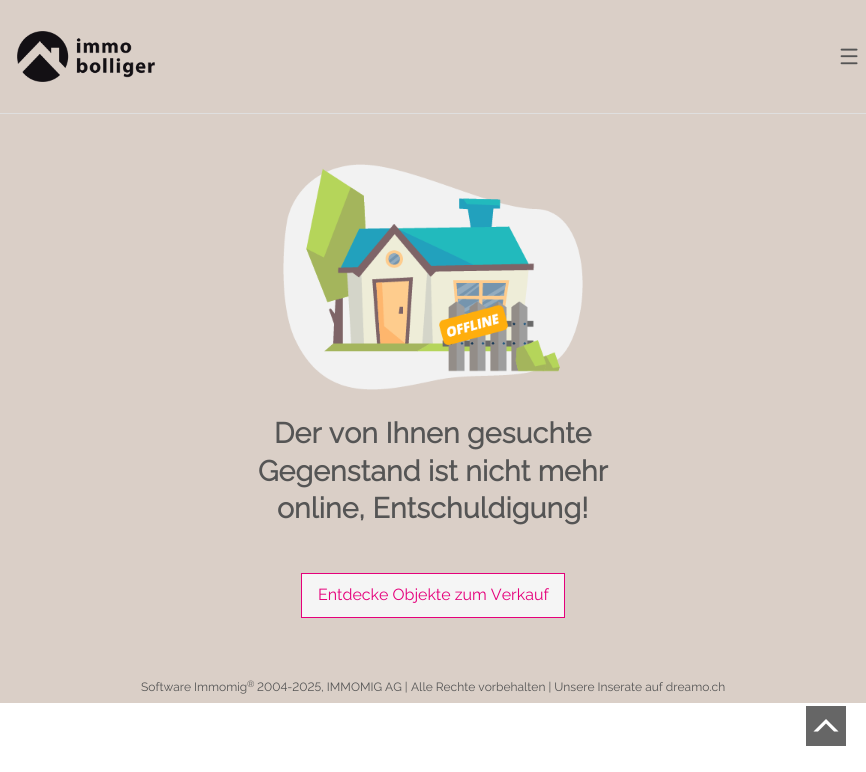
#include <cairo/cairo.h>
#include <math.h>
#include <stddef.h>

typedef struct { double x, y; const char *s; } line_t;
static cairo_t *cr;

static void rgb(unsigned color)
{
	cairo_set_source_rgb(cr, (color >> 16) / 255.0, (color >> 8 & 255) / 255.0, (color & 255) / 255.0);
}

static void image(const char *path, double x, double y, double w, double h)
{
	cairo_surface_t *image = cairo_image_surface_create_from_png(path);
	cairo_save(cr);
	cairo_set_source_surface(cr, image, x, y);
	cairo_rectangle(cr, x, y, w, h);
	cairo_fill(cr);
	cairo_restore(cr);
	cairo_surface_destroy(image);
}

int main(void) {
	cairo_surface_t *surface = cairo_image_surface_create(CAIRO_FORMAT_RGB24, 866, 772);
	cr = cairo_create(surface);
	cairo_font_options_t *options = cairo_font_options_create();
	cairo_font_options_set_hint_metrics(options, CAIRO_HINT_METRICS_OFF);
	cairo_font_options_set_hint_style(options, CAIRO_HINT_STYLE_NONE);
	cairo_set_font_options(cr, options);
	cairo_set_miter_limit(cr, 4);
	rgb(0xffffff);
	cairo_paint(cr);
	rgb(0xdacfc7);
	cairo_rectangle(cr, 0, 0, 866, 113);
	cairo_fill(cr);
	rgb(0xdfdfdf);
	cairo_rectangle(cr, 0, 113, 866, 1);
	cairo_fill(cr);
	image("img/1.png", 17, 31, 138, 51);
	image("img/2.png", 840, 48, 18, 17);
	rgb(0xdacfc7);
	cairo_rectangle(cr, 0, 114, 866, 589);
	cairo_fill(cr);
	image("img/3.png", 283, 164, 300, 226);
	rgb(0xf5f5f5);
	cairo_rectangle(cr, 301.5, 573.5, 263, 44);
	cairo_fill_preserve(cr);
	rgb(0xe5007b);
	cairo_set_line_width(cr, 1);
	cairo_stroke(cr);
	rgb(0x666666);
	cairo_rectangle(cr, 806, 706, 40, 40);
	cairo_fill(cr);
	rgb(0xffffff);
	cairo_new_path(cr);
	cairo_move_to(cr, 834, 731.5);
	cairo_line_to(cr, 838.5, 731.5);
	cairo_line_to(cr, 826, 719);
	cairo_line_to(cr, 813.5, 731.5);
	cairo_line_to(cr, 818, 731.5);
	cairo_line_to(cr, 826, 723.5);
	cairo_close_path(cr);
	cairo_fill(cr);
	cairo_select_font_face(cr, "Raleway", CAIRO_FONT_SLANT_NORMAL, CAIRO_FONT_WEIGHT_BOLD);
	cairo_set_font_size(cr, 28.75);
	rgb(0x555555);
	{
		static const line_t items[] = {
			{274, 443, "Der von Ihnen gesuchte"},
			{258, 481, "Gegenstand ist nicht mehr"},
			{277, 518, "online, Entschuldigung!"},
		};
		for (size_t i = 0; i < sizeof items / sizeof *items; i++) {
			cairo_move_to(cr, items[i].x, items[i].y);
			cairo_show_text(cr, items[i].s);
		}
	}
	cairo_select_font_face(cr, "Raleway Thin", CAIRO_FONT_SLANT_NORMAL, CAIRO_FONT_WEIGHT_NORMAL);
	cairo_set_font_size(cr, 16);
	rgb(0xe5007b);
	cairo_move_to(cr, 318, 600);
	cairo_show_text(cr, "Entdecke Objekte zum Verkauf");
	cairo_set_font_size(cr, 12);
	rgb(0x555555);
	cairo_move_to(cr, 141, 691);
	cairo_show_text(cr, "Software Immomig");
	cairo_set_font_size(cr, 9);
	cairo_move_to(cr, 247, 687);
	cairo_show_text(cr, "®");
	cairo_select_font_face(cr, "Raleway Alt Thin", CAIRO_FONT_SLANT_NORMAL, CAIRO_FONT_WEIGHT_NORMAL);
	cairo_set_font_size(cr, 12);
	cairo_move_to(cr, 257, 691);
	cairo_show_text(cr, "2004-2025, IMMOMIG AG |");
	cairo_select_font_face(cr, "Raleway Thin", CAIRO_FONT_SLANT_NORMAL, CAIRO_FONT_WEIGHT_NORMAL);
	cairo_move_to(cr, 411, 691);
	cairo_show_text(cr, "Alle Rechte vorbehalten | Unsere Inserate auf dreamo.ch");
	cairo_surface_write_to_png(surface, "page.png");
	cairo_font_options_destroy(options);
	cairo_destroy(cr);
	cairo_surface_destroy(surface);
	return 0;
}
